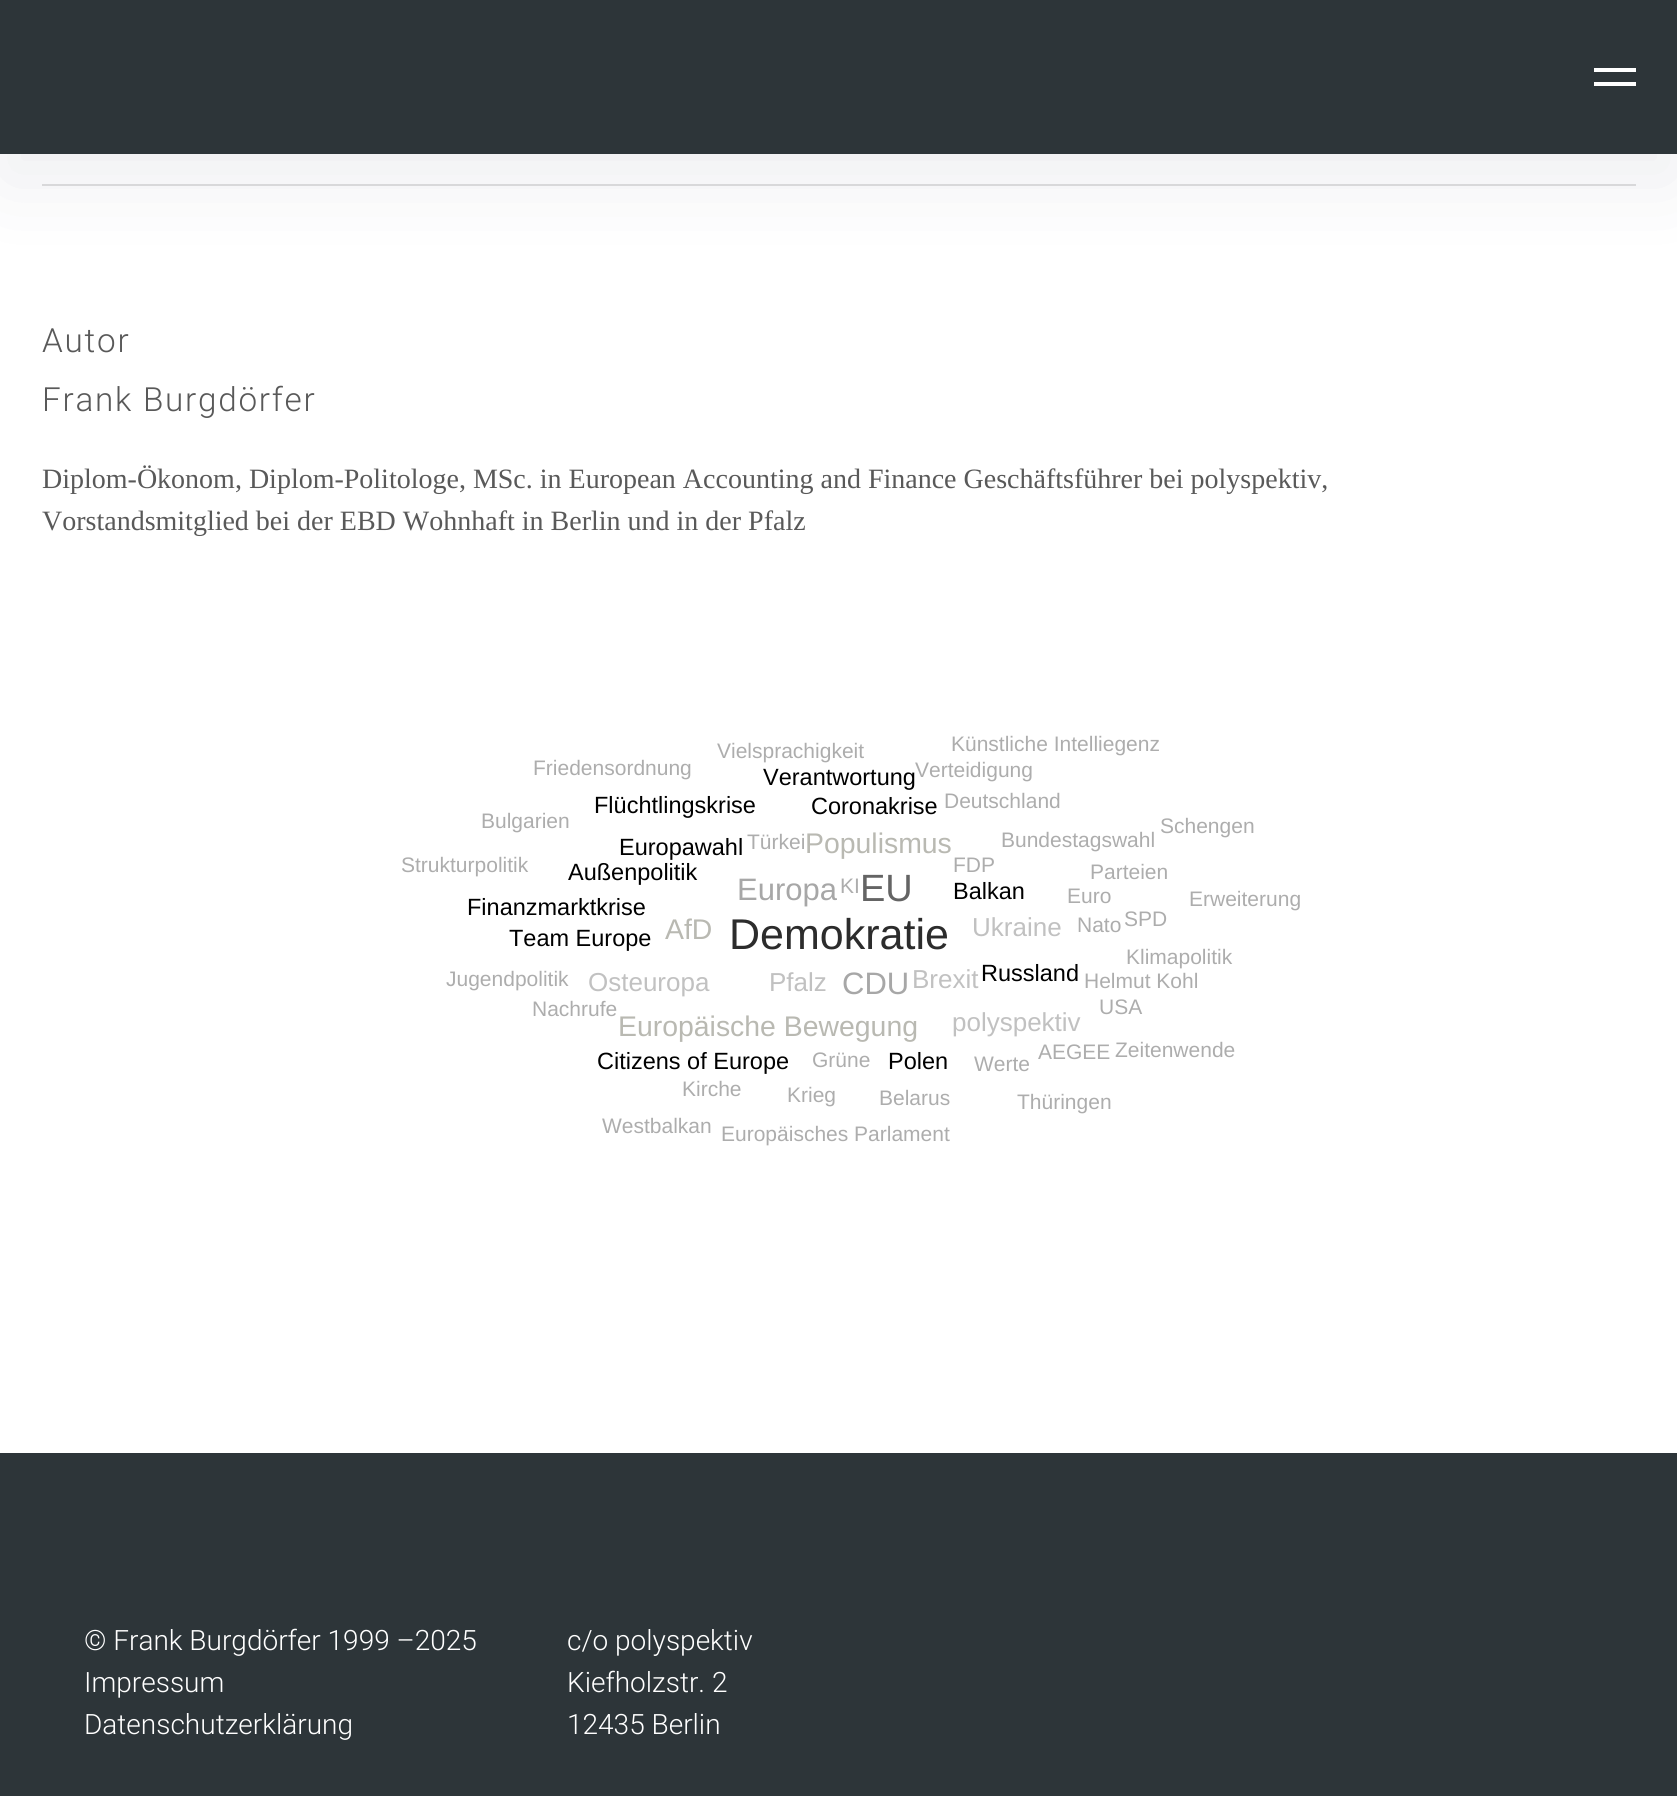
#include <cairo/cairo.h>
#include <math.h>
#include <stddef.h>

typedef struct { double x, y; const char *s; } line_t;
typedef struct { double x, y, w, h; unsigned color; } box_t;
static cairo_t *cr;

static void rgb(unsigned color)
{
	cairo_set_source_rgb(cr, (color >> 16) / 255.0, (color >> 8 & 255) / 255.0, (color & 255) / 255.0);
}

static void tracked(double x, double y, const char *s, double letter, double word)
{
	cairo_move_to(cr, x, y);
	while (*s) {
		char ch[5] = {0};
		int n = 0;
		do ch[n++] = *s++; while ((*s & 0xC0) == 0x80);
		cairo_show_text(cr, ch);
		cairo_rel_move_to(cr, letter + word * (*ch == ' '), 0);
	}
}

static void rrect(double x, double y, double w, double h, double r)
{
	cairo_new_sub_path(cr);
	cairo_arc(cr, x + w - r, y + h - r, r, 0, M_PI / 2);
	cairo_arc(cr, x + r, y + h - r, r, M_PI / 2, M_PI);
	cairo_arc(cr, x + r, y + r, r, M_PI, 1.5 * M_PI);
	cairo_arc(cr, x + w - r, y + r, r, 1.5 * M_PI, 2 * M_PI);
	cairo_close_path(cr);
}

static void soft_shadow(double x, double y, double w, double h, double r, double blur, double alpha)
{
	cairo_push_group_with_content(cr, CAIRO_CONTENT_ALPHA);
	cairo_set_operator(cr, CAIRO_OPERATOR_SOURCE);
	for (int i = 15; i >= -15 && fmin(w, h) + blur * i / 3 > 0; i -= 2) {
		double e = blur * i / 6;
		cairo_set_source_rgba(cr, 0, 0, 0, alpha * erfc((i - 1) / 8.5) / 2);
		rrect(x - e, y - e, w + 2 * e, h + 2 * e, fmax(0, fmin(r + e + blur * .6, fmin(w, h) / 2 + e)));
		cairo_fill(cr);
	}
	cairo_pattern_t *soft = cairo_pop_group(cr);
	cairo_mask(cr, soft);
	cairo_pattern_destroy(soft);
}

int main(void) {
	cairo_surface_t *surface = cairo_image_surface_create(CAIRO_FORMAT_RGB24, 1677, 1796);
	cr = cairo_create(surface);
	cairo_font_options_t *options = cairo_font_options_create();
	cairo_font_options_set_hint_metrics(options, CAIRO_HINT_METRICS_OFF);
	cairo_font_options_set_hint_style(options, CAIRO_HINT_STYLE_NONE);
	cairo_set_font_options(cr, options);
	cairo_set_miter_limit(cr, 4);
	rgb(0xffffff);
	cairo_paint(cr);
	rgb(0xe0e0e0);
	cairo_rectangle(cr, 42, 184, 1594, 2);
	cairo_fill(cr);
	rgb(0x1f2044);
	soft_shadow(0, 28, 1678, 154, 0, 42, 0.08);
	{
		static const box_t items[] = {
			{0, 0, 1677, 154, 0x2d3539},
			{1594, 68, 42, 4, 0xffffff},
			{1594, 82, 42, 4, 0xffffff},
			{0, 1453, 1677, 343, 0x2d3539},
		};
		for (size_t i = 0; i < sizeof items / sizeof *items; i++) {
			rgb(items[i].color);
			cairo_rectangle(cr, items[i].x, items[i].y, items[i].w, items[i].h);
			cairo_fill(cr);
		}
	}
	cairo_select_font_face(cr, "Roboto Light", CAIRO_FONT_SLANT_NORMAL, CAIRO_FONT_WEIGHT_NORMAL);
	cairo_set_font_size(cr, 33.25);
	rgb(0x595959);
	tracked(42, 352, "Autor", 1.75, 0);
	tracked(42, 411, "Frank Burgdörfer", 1.75, 0);
	cairo_select_font_face(cr, "Liberation Serif", CAIRO_FONT_SLANT_NORMAL, CAIRO_FONT_WEIGHT_NORMAL);
	cairo_set_font_size(cr, 28);
	cairo_move_to(cr, 42, 488);
	cairo_show_text(cr, "Diplom-Ökonom, Diplom-Politologe, MSc. in European Accounting and Finance Geschäftsführer bei polyspektiv,");
	cairo_move_to(cr, 42, 530);
	cairo_show_text(cr, "Vorstandsmitglied bei der EBD Wohnhaft in Berlin und in der Pfalz");
	cairo_select_font_face(cr, "Liberation Sans", CAIRO_FONT_SLANT_NORMAL, CAIRO_FONT_WEIGHT_NORMAL);
	cairo_set_font_size(cr, 21);
	rgb(0xadadad);
	{
		static const line_t items[] = {
			{717, 758, "Vielsprachigkeit"},
			{951, 751, "Künstliche Intelliegenz"},
			{533, 775, "Friedensordnung"},
		};
		for (size_t i = 0; i < sizeof items / sizeof *items; i++) {
			cairo_move_to(cr, items[i].x, items[i].y);
			cairo_show_text(cr, items[i].s);
		}
	}
	cairo_set_font_size(cr, 23.5);
	rgb(0x000000);
	cairo_move_to(cr, 763, 785);
	cairo_show_text(cr, "Verantwortung");
	cairo_set_font_size(cr, 21);
	rgb(0xadadad);
	cairo_move_to(cr, 915, 777);
	cairo_show_text(cr, "Verteidigung");
	cairo_set_font_size(cr, 23.5);
	rgb(0x000000);
	cairo_move_to(cr, 594, 813);
	cairo_show_text(cr, "Flüchtlingskrise");
	cairo_move_to(cr, 811, 814);
	cairo_show_text(cr, "Coronakrise");
	cairo_set_font_size(cr, 21);
	rgb(0xadadad);
	{
		static const line_t items[] = {
			{944, 808, "Deutschland"},
			{481, 828, "Bulgarien"},
			{1160, 833, "Schengen"},
		};
		for (size_t i = 0; i < sizeof items / sizeof *items; i++) {
			cairo_move_to(cr, items[i].x, items[i].y);
			cairo_show_text(cr, items[i].s);
		}
	}
	cairo_set_font_size(cr, 23.5);
	rgb(0x000000);
	cairo_move_to(cr, 619, 855);
	cairo_show_text(cr, "Europawahl");
	cairo_set_font_size(cr, 21);
	rgb(0xadadad);
	cairo_move_to(cr, 747, 849);
	cairo_show_text(cr, "Türkei");
	cairo_set_font_size(cr, 28.4);
	rgb(0xb9b9b2);
	cairo_move_to(cr, 805, 853);
	cairo_show_text(cr, "Populismus");
	cairo_set_font_size(cr, 21);
	rgb(0xadadad);
	cairo_move_to(cr, 1001, 847);
	cairo_show_text(cr, "Bundestagswahl");
	cairo_move_to(cr, 401, 872);
	cairo_show_text(cr, "Strukturpolitik");
	cairo_set_font_size(cr, 23.5);
	rgb(0x000000);
	cairo_move_to(cr, 568, 880);
	cairo_show_text(cr, "Außenpolitik");
	cairo_set_font_size(cr, 21);
	rgb(0xadadad);
	cairo_move_to(cr, 953, 872);
	cairo_show_text(cr, "FDP");
	cairo_move_to(cr, 1090, 879);
	cairo_show_text(cr, "Parteien");
	cairo_set_font_size(cr, 23.5);
	rgb(0x000000);
	cairo_move_to(cr, 467, 915);
	cairo_show_text(cr, "Finanzmarktkrise");
	cairo_set_font_size(cr, 31);
	rgb(0xa7a7a7);
	cairo_move_to(cr, 737, 900);
	cairo_show_text(cr, "Europa");
	cairo_set_font_size(cr, 21);
	rgb(0xadadad);
	cairo_move_to(cr, 840, 893);
	cairo_show_text(cr, "KI");
	cairo_set_font_size(cr, 38);
	rgb(0x646464);
	cairo_move_to(cr, 860, 901);
	cairo_show_text(cr, "EU");
	cairo_set_font_size(cr, 23.5);
	rgb(0x000000);
	cairo_move_to(cr, 953, 899);
	cairo_show_text(cr, "Balkan");
	cairo_set_font_size(cr, 21);
	rgb(0xadadad);
	cairo_move_to(cr, 1067, 903);
	cairo_show_text(cr, "Euro");
	cairo_move_to(cr, 1189, 906);
	cairo_show_text(cr, "Erweiterung");
	cairo_set_font_size(cr, 23.5);
	rgb(0x000000);
	cairo_move_to(cr, 509, 946);
	cairo_show_text(cr, "Team Europe");
	cairo_set_font_size(cr, 28.4);
	rgb(0xb9b9b2);
	cairo_move_to(cr, 665, 939);
	cairo_show_text(cr, "AfD");
	cairo_set_font_size(cr, 43);
	rgb(0x2c2c2c);
	cairo_move_to(cr, 729, 949);
	cairo_show_text(cr, "Demokratie");
	cairo_set_font_size(cr, 26);
	rgb(0xc1c1c1);
	cairo_move_to(cr, 972, 936);
	cairo_show_text(cr, "Ukraine");
	cairo_set_font_size(cr, 21);
	rgb(0xadadad);
	{
		static const line_t items[] = {
			{1077, 932, "Nato"},
			{1124, 926, "SPD"},
			{1126, 964, "Klimapolitik"},
			{446, 986, "Jugendpolitik"},
		};
		for (size_t i = 0; i < sizeof items / sizeof *items; i++) {
			cairo_move_to(cr, items[i].x, items[i].y);
			cairo_show_text(cr, items[i].s);
		}
	}
	cairo_set_font_size(cr, 26);
	rgb(0xc1c1c1);
	cairo_move_to(cr, 588, 991);
	cairo_show_text(cr, "Osteuropa");
	cairo_move_to(cr, 769, 991);
	cairo_show_text(cr, "Pfalz");
	cairo_set_font_size(cr, 31);
	rgb(0xa7a7a7);
	cairo_move_to(cr, 842, 994);
	cairo_show_text(cr, "CDU");
	cairo_set_font_size(cr, 26);
	rgb(0xc1c1c1);
	cairo_move_to(cr, 912, 988);
	cairo_show_text(cr, "Brexit");
	cairo_set_font_size(cr, 23.5);
	rgb(0x000000);
	cairo_move_to(cr, 981, 981);
	cairo_show_text(cr, "Russland");
	cairo_set_font_size(cr, 21);
	rgb(0xadadad);
	{
		static const line_t items[] = {
			{1084, 988, "Helmut Kohl"},
			{532, 1016, "Nachrufe"},
			{1099, 1014, "USA"},
		};
		for (size_t i = 0; i < sizeof items / sizeof *items; i++) {
			cairo_move_to(cr, items[i].x, items[i].y);
			cairo_show_text(cr, items[i].s);
		}
	}
	cairo_set_font_size(cr, 28.4);
	rgb(0xb9b9b2);
	cairo_move_to(cr, 618, 1036);
	cairo_show_text(cr, "Europäische Bewegung");
	cairo_set_font_size(cr, 26);
	rgb(0xc1c1c1);
	cairo_move_to(cr, 952, 1031);
	cairo_show_text(cr, "polyspektiv");
	cairo_set_font_size(cr, 23.5);
	rgb(0x000000);
	cairo_move_to(cr, 597, 1069);
	cairo_show_text(cr, "Citizens of Europe");
	cairo_set_font_size(cr, 21);
	rgb(0xadadad);
	cairo_move_to(cr, 812, 1067);
	cairo_show_text(cr, "Grüne");
	cairo_set_font_size(cr, 23.5);
	rgb(0x000000);
	cairo_move_to(cr, 888, 1069);
	cairo_show_text(cr, "Polen");
	cairo_set_font_size(cr, 21);
	rgb(0xadadad);
	{
		static const line_t items[] = {
			{974, 1071, "Werte"},
			{1038, 1059, "AEGEE"},
			{1115, 1057, "Zeitenwende"},
			{682, 1096, "Kirche"},
			{787, 1102, "Krieg"},
			{879, 1105, "Belarus"},
			{1017, 1109, "Thüringen"},
			{602, 1133, "Westbalkan"},
			{721, 1141, "Europäisches Parlament"},
		};
		for (size_t i = 0; i < sizeof items / sizeof *items; i++) {
			cairo_move_to(cr, items[i].x, items[i].y);
			cairo_show_text(cr, items[i].s);
		}
	}
	cairo_select_font_face(cr, "Roboto Light", CAIRO_FONT_SLANT_NORMAL, CAIRO_FONT_WEIGHT_NORMAL);
	cairo_set_font_size(cr, 28);
	rgb(0xffffff);
	{
		static const line_t items[] = {
			{84, 1650, "© Frank Burgdörfer 1999 –2025"},
			{84, 1692, "Impressum"},
			{84, 1734, "Datenschutzerklärung"},
			{567, 1650, "c/o polyspektiv"},
			{567, 1692, "Kiefholzstr. 2"},
			{567, 1734, "12435 Berlin"},
		};
		for (size_t i = 0; i < sizeof items / sizeof *items; i++) {
			cairo_move_to(cr, items[i].x, items[i].y);
			cairo_show_text(cr, items[i].s);
		}
	}
	cairo_surface_write_to_png(surface, "page.png");
	cairo_font_options_destroy(options);
	cairo_destroy(cr);
	cairo_surface_destroy(surface);
	return 0;
}
